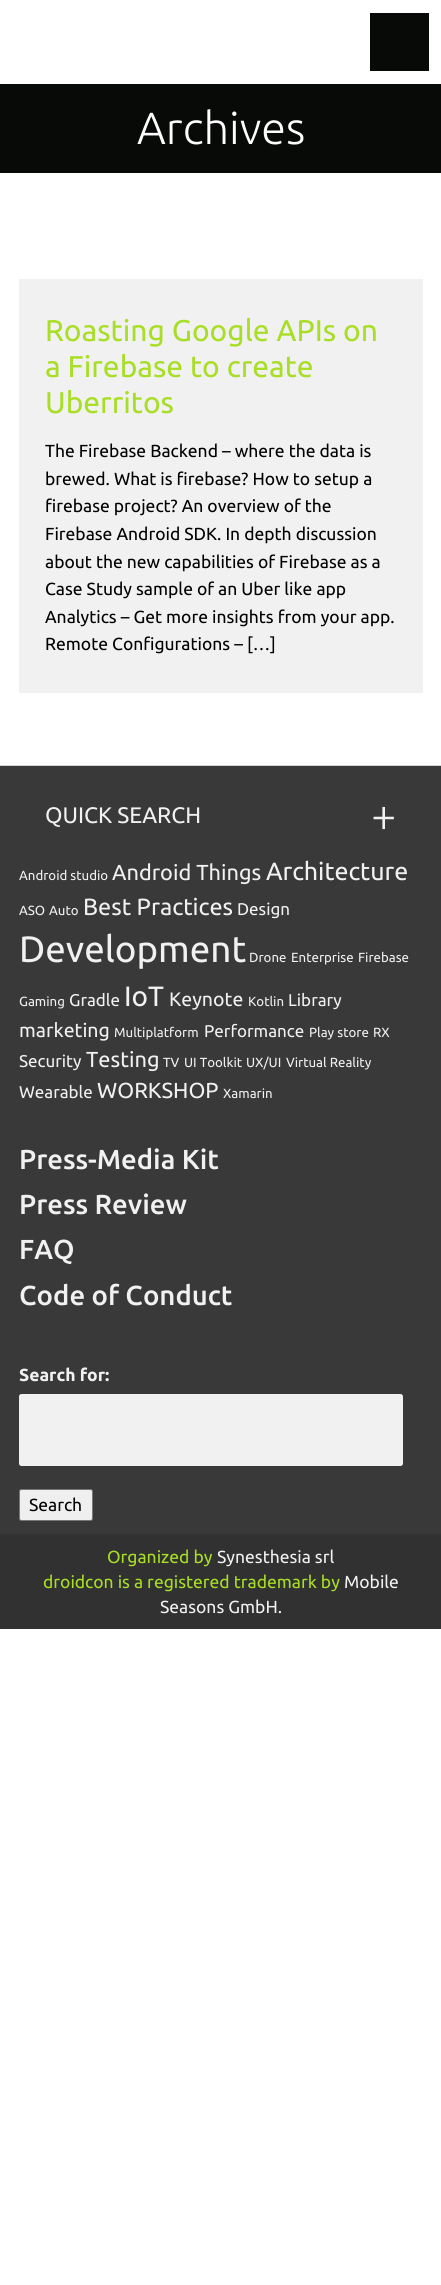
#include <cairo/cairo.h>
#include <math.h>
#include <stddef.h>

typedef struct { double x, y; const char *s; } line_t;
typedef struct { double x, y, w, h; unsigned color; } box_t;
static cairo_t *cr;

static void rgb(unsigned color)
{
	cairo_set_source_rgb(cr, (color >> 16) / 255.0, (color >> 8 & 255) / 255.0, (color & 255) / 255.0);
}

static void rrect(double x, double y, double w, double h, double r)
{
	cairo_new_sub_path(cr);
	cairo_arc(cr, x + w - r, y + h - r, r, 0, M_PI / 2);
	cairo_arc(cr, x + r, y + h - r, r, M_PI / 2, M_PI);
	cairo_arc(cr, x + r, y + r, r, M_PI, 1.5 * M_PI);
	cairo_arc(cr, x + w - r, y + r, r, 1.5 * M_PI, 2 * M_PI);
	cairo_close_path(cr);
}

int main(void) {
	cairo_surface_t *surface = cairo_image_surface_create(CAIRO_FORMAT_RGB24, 441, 2285);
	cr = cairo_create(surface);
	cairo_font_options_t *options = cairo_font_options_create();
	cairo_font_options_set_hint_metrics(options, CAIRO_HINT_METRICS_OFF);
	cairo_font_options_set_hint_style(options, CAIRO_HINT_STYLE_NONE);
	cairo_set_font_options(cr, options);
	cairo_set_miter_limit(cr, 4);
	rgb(0xffffff);
	cairo_paint(cr);
	{
		static const box_t items[] = {
			{370, 13, 59, 58, 0x080a08},
			{0, 84, 441, 89, 0x080a08},
			{19, 279, 404, 414, 0xf1f1f1},
			{0, 766, 441, 768, 0x393939},
			{0, 765, 441, 1, 0xd3d3d3},
		};
		for (size_t i = 0; i < sizeof items / sizeof *items; i++) {
			rgb(items[i].color);
			cairo_rectangle(cr, items[i].x, items[i].y, items[i].w, items[i].h);
			cairo_fill(cr);
		}
	}
	rgb(0xf1f1f1);
	rrect(19, 1394, 384, 72, 2.5);
	cairo_fill(cr);
	rgb(0xefefef);
	rrect(19.5, 1489.5, 73, 31, 2);
	cairo_fill_preserve(cr);
	rgb(0x767676);
	cairo_set_line_width(cr, 1);
	cairo_stroke(cr);
	rgb(0x313131);
	cairo_rectangle(cr, 0, 1534, 441, 95);
	cairo_fill(cr);
	cairo_select_font_face(cr, "Ubuntu Light", CAIRO_FONT_SLANT_NORMAL, CAIRO_FONT_WEIGHT_NORMAL);
	cairo_set_font_size(cr, 45);
	rgb(0xffffff);
	cairo_move_to(cr, 137, 144);
	cairo_show_text(cr, "Archives");
	cairo_select_font_face(cr, "Ubuntu", CAIRO_FONT_SLANT_NORMAL, CAIRO_FONT_WEIGHT_NORMAL);
	cairo_set_font_size(cr, 30);
	rgb(0xa8de25);
	{
		static const line_t items[] = {
			{45, 341, "Roasting Google APIs on"},
			{45, 377, "a Firebase to create"},
			{45, 413, "Uberritos"},
		};
		for (size_t i = 0; i < sizeof items / sizeof *items; i++) {
			cairo_move_to(cr, items[i].x, items[i].y);
			cairo_show_text(cr, items[i].s);
		}
	}
	cairo_set_font_size(cr, 17.5);
	rgb(0x000000);
	{
		static const line_t items[] = {
			{45, 457, "The Firebase Backend – where the data is"},
			{45, 485, "brewed. What is firebase? How to setup a"},
			{45, 512, "firebase project? An overview of the"},
			{45, 540, "Firebase Android SDK. In depth discussion"},
			{45, 568, "about the new capabilities of Firebase as a"},
			{45, 595, "Case Study sample of an Uber like app"},
			{45, 623, "Analytics – Get more insights from your app."},
			{45, 650, "Remote Configurations – […]"},
		};
		for (size_t i = 0; i < sizeof items / sizeof *items; i++) {
			cairo_move_to(cr, items[i].x, items[i].y);
			cairo_show_text(cr, items[i].s);
		}
	}
	cairo_set_font_size(cr, 22.5);
	rgb(0xf1f1f1);
	cairo_move_to(cr, 45, 823);
	cairo_show_text(cr, "QUICK SEARCH");
	cairo_select_font_face(cr, "Ubuntu Light", CAIRO_FONT_SLANT_NORMAL, CAIRO_FONT_WEIGHT_NORMAL);
	cairo_set_font_size(cr, 45);
	cairo_move_to(cr, 371, 831);
	cairo_show_text(cr, "+");
	cairo_select_font_face(cr, "Ubuntu", CAIRO_FONT_SLANT_NORMAL, CAIRO_FONT_WEIGHT_NORMAL);
	cairo_set_font_size(cr, 13.25);
	cairo_move_to(cr, 19, 880);
	cairo_show_text(cr, "Android studio");
	cairo_set_font_size(cr, 21.75);
	cairo_move_to(cr, 112, 880);
	cairo_show_text(cr, "Android Things");
	cairo_set_font_size(cr, 25);
	cairo_move_to(cr, 266, 880);
	cairo_show_text(cr, "Architecture");
	cairo_set_font_size(cr, 13.25);
	cairo_move_to(cr, 19, 915);
	cairo_show_text(cr, "ASO");
	cairo_move_to(cr, 49, 915);
	cairo_show_text(cr, "Auto");
	cairo_set_font_size(cr, 23.5);
	cairo_move_to(cr, 83, 915);
	cairo_show_text(cr, "Best Practices");
	cairo_set_font_size(cr, 17);
	cairo_move_to(cr, 237, 915);
	cairo_show_text(cr, "Design");
	cairo_set_font_size(cr, 36.75);
	cairo_move_to(cr, 19, 962);
	cairo_show_text(cr, "Development");
	cairo_set_font_size(cr, 13.25);
	{
		static const line_t items[] = {
			{249, 962, "Drone"},
			{291, 962, "Enterprise"},
			{358, 962, "Firebase"},
			{19, 1006, "Gaming"},
		};
		for (size_t i = 0; i < sizeof items / sizeof *items; i++) {
			cairo_move_to(cr, items[i].x, items[i].y);
			cairo_show_text(cr, items[i].s);
		}
	}
	cairo_set_font_size(cr, 17);
	cairo_move_to(cr, 69, 1006);
	cairo_show_text(cr, "Gradle");
	cairo_set_font_size(cr, 28);
	cairo_move_to(cr, 124, 1006);
	cairo_show_text(cr, "IoT");
	cairo_set_font_size(cr, 19.5);
	cairo_move_to(cr, 169, 1006);
	cairo_show_text(cr, "Keynote");
	cairo_set_font_size(cr, 13.25);
	cairo_move_to(cr, 248, 1006);
	cairo_show_text(cr, "Kotlin");
	cairo_set_font_size(cr, 17);
	cairo_move_to(cr, 288, 1006);
	cairo_show_text(cr, "Library");
	cairo_set_font_size(cr, 19.5);
	cairo_move_to(cr, 19, 1037);
	cairo_show_text(cr, "marketing");
	cairo_set_font_size(cr, 13.25);
	cairo_move_to(cr, 114, 1037);
	cairo_show_text(cr, "Multiplatform");
	cairo_set_font_size(cr, 17);
	cairo_move_to(cr, 204, 1037);
	cairo_show_text(cr, "Performance");
	cairo_set_font_size(cr, 13.25);
	cairo_move_to(cr, 309, 1037);
	cairo_show_text(cr, "Play store");
	cairo_move_to(cr, 373, 1037);
	cairo_show_text(cr, "RX");
	cairo_set_font_size(cr, 17);
	cairo_move_to(cr, 19, 1067);
	cairo_show_text(cr, "Security");
	cairo_set_font_size(cr, 21.75);
	cairo_move_to(cr, 86, 1067);
	cairo_show_text(cr, "Testing");
	cairo_set_font_size(cr, 13.25);
	{
		static const line_t items[] = {
			{163, 1067, "TV"},
			{184, 1067, "UI Toolkit"},
			{246, 1067, "UX/UI"},
			{286, 1067, "Virtual Reality"},
		};
		for (size_t i = 0; i < sizeof items / sizeof *items; i++) {
			cairo_move_to(cr, items[i].x, items[i].y);
			cairo_show_text(cr, items[i].s);
		}
	}
	cairo_set_font_size(cr, 17);
	cairo_move_to(cr, 19, 1098);
	cairo_show_text(cr, "Wearable");
	cairo_set_font_size(cr, 21.75);
	cairo_move_to(cr, 97, 1098);
	cairo_show_text(cr, "WORKSHOP");
	cairo_set_font_size(cr, 13.25);
	cairo_move_to(cr, 223, 1098);
	cairo_show_text(cr, "Xamarin");
	cairo_select_font_face(cr, "Ubuntu Medium", CAIRO_FONT_SLANT_NORMAL, CAIRO_FONT_WEIGHT_NORMAL);
	cairo_set_font_size(cr, 27.5);
	{
		static const line_t items[] = {
			{19, 1169, "Press-Media Kit"},
			{19, 1214, "Press Review"},
			{19, 1259, "FAQ"},
			{19, 1305, "Code of Conduct"},
		};
		for (size_t i = 0; i < sizeof items / sizeof *items; i++) {
			cairo_move_to(cr, items[i].x, items[i].y);
			cairo_show_text(cr, items[i].s);
		}
	}
	cairo_select_font_face(cr, "Ubuntu", CAIRO_FONT_SLANT_NORMAL, CAIRO_FONT_WEIGHT_BOLD);
	cairo_set_font_size(cr, 17.5);
	cairo_move_to(cr, 19, 1381);
	cairo_show_text(cr, "Search for:");
	cairo_select_font_face(cr, "Ubuntu", CAIRO_FONT_SLANT_NORMAL, CAIRO_FONT_WEIGHT_NORMAL);
	rgb(0x000000);
	cairo_move_to(cr, 29, 1511);
	cairo_show_text(cr, "Search");
	rgb(0xa8de25);
	cairo_move_to(cr, 107, 1563);
	cairo_show_text(cr, "Organized by");
	rgb(0xf1f1f1);
	cairo_move_to(cr, 217, 1563);
	cairo_show_text(cr, "Synesthesia srl");
	rgb(0xa8de25);
	cairo_move_to(cr, 43, 1588);
	cairo_show_text(cr, "droidcon is a registered trademark by");
	rgb(0xf1f1f1);
	cairo_move_to(cr, 344, 1588);
	cairo_show_text(cr, "Mobile");
	cairo_move_to(cr, 160, 1613);
	cairo_show_text(cr, "Seasons GmbH.");
	cairo_surface_write_to_png(surface, "page.png");
	cairo_font_options_destroy(options);
	cairo_destroy(cr);
	cairo_surface_destroy(surface);
	return 0;
}
